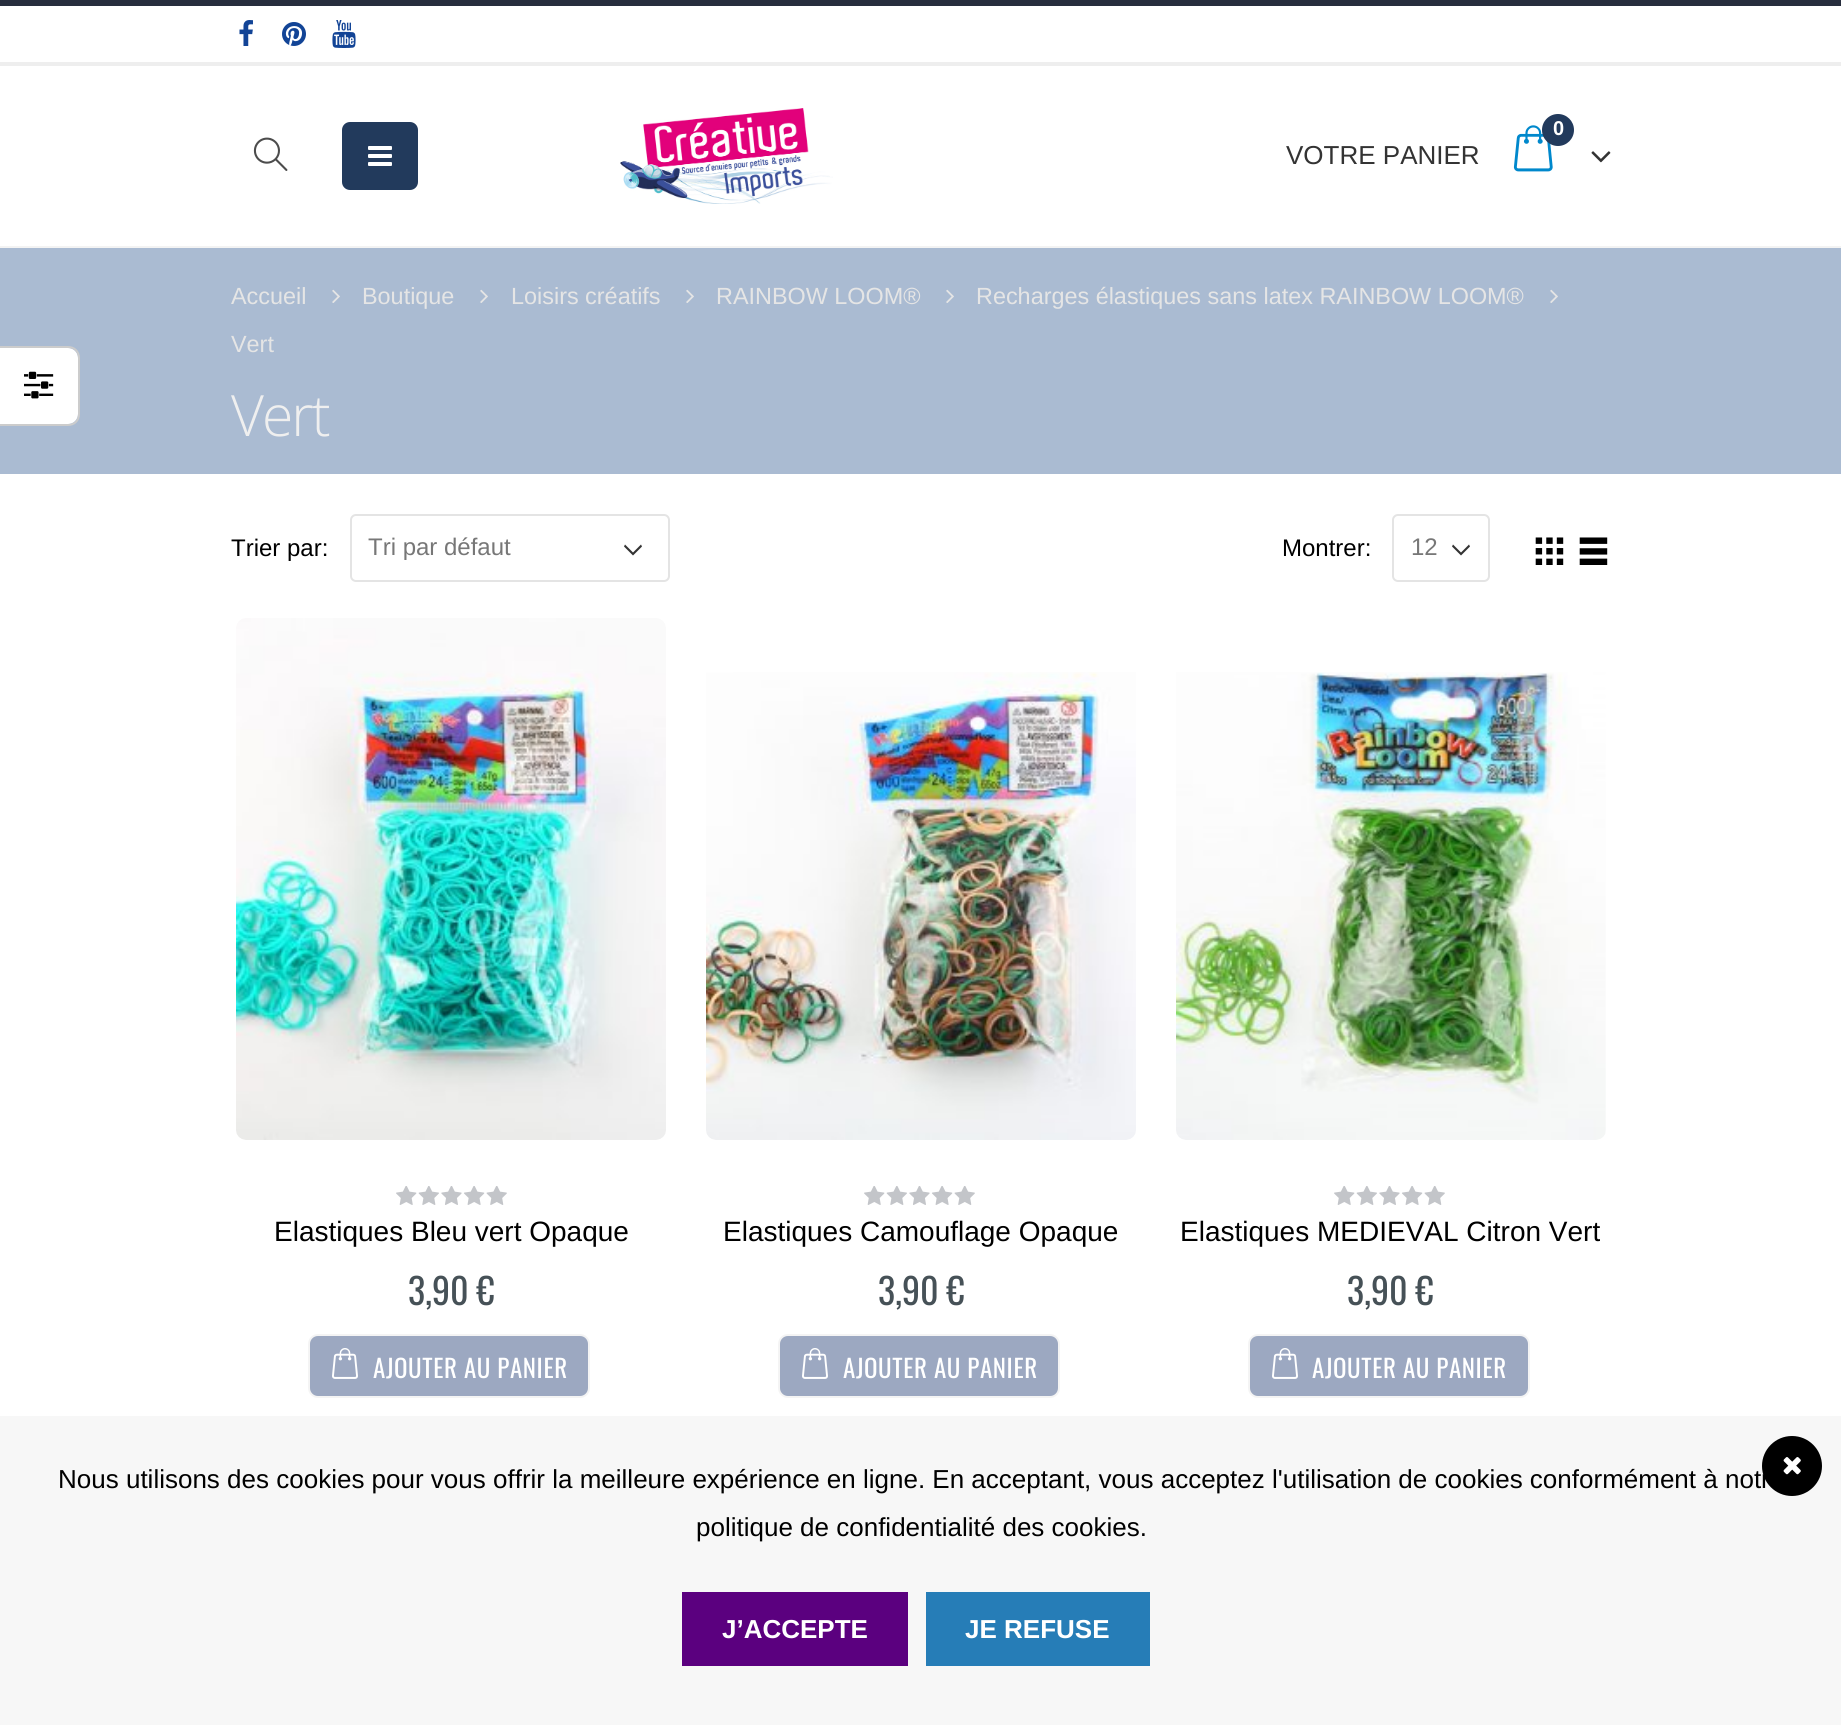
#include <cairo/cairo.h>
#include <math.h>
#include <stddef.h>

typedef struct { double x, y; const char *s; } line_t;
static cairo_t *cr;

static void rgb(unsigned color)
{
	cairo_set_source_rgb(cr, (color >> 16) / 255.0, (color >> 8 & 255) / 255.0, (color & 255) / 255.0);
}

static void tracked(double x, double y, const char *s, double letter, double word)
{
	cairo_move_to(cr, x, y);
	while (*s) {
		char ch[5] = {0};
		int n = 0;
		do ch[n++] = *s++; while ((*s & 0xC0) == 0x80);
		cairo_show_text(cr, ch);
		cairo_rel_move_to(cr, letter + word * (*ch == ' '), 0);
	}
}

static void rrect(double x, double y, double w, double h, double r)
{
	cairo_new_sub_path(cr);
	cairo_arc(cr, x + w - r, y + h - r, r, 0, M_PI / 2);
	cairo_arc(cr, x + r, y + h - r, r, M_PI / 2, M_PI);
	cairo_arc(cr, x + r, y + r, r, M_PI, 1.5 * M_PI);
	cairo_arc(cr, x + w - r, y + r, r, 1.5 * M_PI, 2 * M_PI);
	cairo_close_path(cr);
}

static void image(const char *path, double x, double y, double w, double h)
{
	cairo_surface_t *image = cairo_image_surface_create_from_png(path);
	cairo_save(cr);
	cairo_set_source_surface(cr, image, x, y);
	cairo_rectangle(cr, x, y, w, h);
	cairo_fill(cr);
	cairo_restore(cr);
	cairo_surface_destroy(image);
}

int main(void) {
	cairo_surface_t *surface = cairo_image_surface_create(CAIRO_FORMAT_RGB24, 1841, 1725);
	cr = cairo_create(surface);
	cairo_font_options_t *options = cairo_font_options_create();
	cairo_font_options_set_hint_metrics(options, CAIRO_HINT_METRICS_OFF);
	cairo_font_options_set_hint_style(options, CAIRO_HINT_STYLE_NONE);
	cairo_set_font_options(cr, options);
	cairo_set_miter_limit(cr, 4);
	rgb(0xffffff);
	cairo_paint(cr);
	rgb(0xaabbd2);
	cairo_rectangle(cr, 0, 248, 1841, 226);
	cairo_fill(cr);
	rgb(0xffffff);
	cairo_new_path(cr);
	cairo_move_to(cr, 0, 348);
	cairo_line_to(cr, 68, 348);
	cairo_curve_to(cr, 73.5, 348, 78, 352.5, 78, 358);
	cairo_line_to(cr, 78, 414);
	cairo_curve_to(cr, 78, 419.5, 73.5, 424, 68, 424);
	cairo_line_to(cr, 0, 424);
	cairo_close_path(cr);
	cairo_fill(cr);
	rgb(0xcccccc);
	cairo_set_fill_rule(cr, CAIRO_FILL_RULE_EVEN_ODD);
	cairo_new_path(cr);
	cairo_move_to(cr, 0, 346);
	cairo_line_to(cr, 68, 346);
	cairo_curve_to(cr, 75, 346, 80, 351, 80, 358);
	cairo_line_to(cr, 80, 414);
	cairo_curve_to(cr, 80, 421, 75, 426, 68, 426);
	cairo_line_to(cr, 0, 426);
	cairo_close_path(cr);
	cairo_move_to(cr, 0, 348);
	cairo_line_to(cr, 68, 348);
	cairo_curve_to(cr, 74, 348, 78, 352, 78, 358);
	cairo_line_to(cr, 78, 414);
	cairo_curve_to(cr, 78, 420, 74, 424, 68, 424);
	cairo_line_to(cr, 0, 424);
	cairo_close_path(cr);
	cairo_fill(cr);
	image("img/1.png", 24, 371, 30, 28);
	rgb(0x272d3d);
	cairo_rectangle(cr, 0, 0, 1841, 6);
	cairo_fill(cr);
	rgb(0xeeeeee);
	cairo_rectangle(cr, 0, 62, 1841, 4);
	cairo_fill(cr);
	image("img/2.png", 239, 20, 14, 26);
	image("img/3.png", 282, 22, 24, 24);
	image("img/4.png", 332, 20, 24, 28);
	image("img/5.png", 253, 137, 35, 34);
	rgb(0x223a5c);
	rrect(342, 122, 76, 68, 8);
	cairo_fill(cr);
	image("img/6.png", 368, 146, 24, 20);
	image("img/7.png", 620, 108, 213, 96);
	image("img/8.png", 1513, 125, 40, 47);
	cairo_arc(cr, 1558, 130, 16, 0, 2 * M_PI);
	cairo_fill(cr);
	image("img/9.png", 1591, 151, 20, 12);
	rgb(0xf3f3f3);
	cairo_rectangle(cr, 0, 246, 1841, 2);
	cairo_fill(cr);
	image("img/10.png", 332, 289, 8, 14);
	image("img/10.png", 480, 289, 8, 14);
	image("img/10.png", 686, 289, 8, 14);
	image("img/10.png", 946, 289, 8, 14);
	image("img/10.png", 1550, 289, 8, 14);
	rgb(0x333333);
	cairo_new_path(cr);
	cairo_move_to(cr, 633, 555.5);
	cairo_line_to(cr, 642, 546.5);
	cairo_line_to(cr, 641, 544.5);
	cairo_line_to(cr, 633, 552.5);
	cairo_line_to(cr, 625, 544.5);
	cairo_line_to(cr, 624, 546.5);
	cairo_close_path(cr);
	cairo_fill(cr);
	rrect(351, 515, 318, 66, 5);
	rgb(0xe4e4e4);
	cairo_stroke(cr);
	rgb(0x333333);
	cairo_new_path(cr);
	cairo_move_to(cr, 1461, 555.5);
	cairo_line_to(cr, 1470, 546.5);
	cairo_line_to(cr, 1469, 544.5);
	cairo_line_to(cr, 1461, 552.5);
	cairo_line_to(cr, 1453, 544.5);
	cairo_line_to(cr, 1452, 546.5);
	cairo_close_path(cr);
	cairo_fill(cr);
	rrect(1393, 515, 96, 66, 5);
	rgb(0xe4e4e4);
	cairo_stroke(cr);
	image("img/11.png", 1535, 537, 29, 28);
	image("img/12.png", 1579, 537, 29, 28);
	image("img/13.png", 236, 618, 430, 522);
	image("img/14.png", 396, 1186, 111, 19);
	rgb(0x9ca8c1);
	rrect(309, 1335, 280, 62, 9);
	cairo_fill_preserve(cr);
	rgb(0xf4f4f4);
	cairo_stroke(cr);
	image("img/15.png", 332, 1348, 26, 31);
	image("img/16.png", 706, 672, 430, 468);
	image("img/14.png", 864, 1186, 111, 19);
	rgb(0x9ca8c1);
	rrect(779, 1335, 280, 62, 9);
	cairo_fill_preserve(cr);
	rgb(0xf4f4f4);
	cairo_stroke(cr);
	image("img/15.png", 802, 1348, 26, 31);
	image("img/17.png", 1176, 672, 430, 468);
	image("img/14.png", 1334, 1186, 111, 19);
	rgb(0x9ca8c1);
	rrect(1249, 1335, 280, 62, 9);
	cairo_fill_preserve(cr);
	rgb(0xf4f4f4);
	cairo_stroke(cr);
	image("img/15.png", 1272, 1348, 26, 31);
	rgb(0xf7f7f7);
	cairo_rectangle(cr, 0, 1416, 1841, 309);
	cairo_fill(cr);
	rgb(0x000000);
	cairo_arc(cr, 1792, 1466, 30, 0, 2 * M_PI);
	cairo_fill(cr);
	image("img/18.png", 1783, 1457, 18, 18);
	rgb(0x5b007f);
	cairo_rectangle(cr, 682, 1592, 226, 74);
	cairo_fill(cr);
	rgb(0x267db7);
	cairo_rectangle(cr, 926, 1592, 224, 74);
	cairo_fill(cr);
	cairo_select_font_face(cr, "Liberation Sans", CAIRO_FONT_SLANT_NORMAL, CAIRO_FONT_WEIGHT_BOLD);
	cairo_set_font_size(cr, 20);
	rgb(0xffffff);
	cairo_move_to(cr, 1553, 135);
	cairo_show_text(cr, "0");
	cairo_select_font_face(cr, "Liberation Sans", CAIRO_FONT_SLANT_NORMAL, CAIRO_FONT_WEIGHT_NORMAL);
	cairo_set_font_size(cr, 26);
	rgb(0x333333);
	cairo_move_to(cr, 1286, 164);
	cairo_show_text(cr, "VOTRE PANIER");
	cairo_set_font_size(cr, 23.4);
	rgb(0xe5e5e5);
	{
		static const line_t items[] = {
			{231, 304, "Accueil"},
			{362, 304, "Boutique"},
			{511, 304, "Loisirs créatifs"},
			{716, 304, "RAINBOW LOOM®"},
			{976, 304, "Recharges élastiques sans latex RAINBOW LOOM®"},
			{231, 352, "Vert"},
		};
		for (size_t i = 0; i < sizeof items / sizeof *items; i++) {
			cairo_move_to(cr, items[i].x, items[i].y);
			cairo_show_text(cr, items[i].s);
		}
	}
	cairo_select_font_face(cr, "Open Sans Light", CAIRO_FONT_SLANT_NORMAL, CAIRO_FONT_WEIGHT_NORMAL);
	cairo_set_font_size(cr, 57);
	rgb(0xefefef);
	tracked(231, 436, "Vert", -2, 0);
	cairo_select_font_face(cr, "Liberation Sans", CAIRO_FONT_SLANT_NORMAL, CAIRO_FONT_WEIGHT_NORMAL);
	cairo_set_font_size(cr, 24);
	rgb(0x000000);
	cairo_move_to(cr, 231, 556);
	cairo_show_text(cr, "Trier par:");
	rgb(0x777777);
	cairo_move_to(cr, 368, 555);
	cairo_show_text(cr, "Tri par défaut");
	rgb(0x000000);
	cairo_move_to(cr, 1282, 556);
	cairo_show_text(cr, "Montrer:");
	rgb(0x777777);
	cairo_move_to(cr, 1411, 555);
	cairo_show_text(cr, "12");
	cairo_set_font_size(cr, 28);
	rgb(0x000000);
	cairo_move_to(cr, 274, 1241);
	cairo_show_text(cr, "Elastiques Bleu vert Opaque");
	cairo_select_font_face(cr, "Oswald", CAIRO_FONT_SLANT_NORMAL, CAIRO_FONT_WEIGHT_NORMAL);
	cairo_set_font_size(cr, 36);
	rgb(0x465157);
	cairo_move_to(cr, 408, 1305);
	cairo_show_text(cr, "3,90 €");
	cairo_set_font_size(cr, 25);
	rgb(0xffffff);
	tracked(373, 1378, "AJOUTER AU PANIER", 0.6, 0);
	cairo_select_font_face(cr, "Liberation Sans", CAIRO_FONT_SLANT_NORMAL, CAIRO_FONT_WEIGHT_NORMAL);
	cairo_set_font_size(cr, 28);
	rgb(0x000000);
	cairo_move_to(cr, 723, 1241);
	cairo_show_text(cr, "Elastiques Camouflage Opaque");
	cairo_select_font_face(cr, "Oswald", CAIRO_FONT_SLANT_NORMAL, CAIRO_FONT_WEIGHT_NORMAL);
	cairo_set_font_size(cr, 36);
	rgb(0x465157);
	cairo_move_to(cr, 878, 1305);
	cairo_show_text(cr, "3,90 €");
	cairo_set_font_size(cr, 25);
	rgb(0xffffff);
	tracked(843, 1378, "AJOUTER AU PANIER", 0.6, 0);
	cairo_select_font_face(cr, "Liberation Sans", CAIRO_FONT_SLANT_NORMAL, CAIRO_FONT_WEIGHT_NORMAL);
	cairo_set_font_size(cr, 28);
	rgb(0x000000);
	cairo_move_to(cr, 1180, 1241);
	cairo_show_text(cr, "Elastiques MEDIEVAL Citron Vert");
	cairo_select_font_face(cr, "Oswald", CAIRO_FONT_SLANT_NORMAL, CAIRO_FONT_WEIGHT_NORMAL);
	cairo_set_font_size(cr, 36);
	rgb(0x465157);
	cairo_move_to(cr, 1347, 1305);
	cairo_show_text(cr, "3,90 €");
	cairo_set_font_size(cr, 25);
	rgb(0xffffff);
	tracked(1312, 1378, "AJOUTER AU PANIER", 0.6, 0);
	cairo_select_font_face(cr, "Liberation Sans", CAIRO_FONT_SLANT_NORMAL, CAIRO_FONT_WEIGHT_NORMAL);
	cairo_set_font_size(cr, 26);
	rgb(0x000000);
	cairo_move_to(cr, 58, 1488);
	cairo_show_text(cr, "Nous utilisons des cookies pour vous offrir la meilleure expérience en ligne. En acceptant, vous acceptez l'utilisation de cookies conformément à notr");
	cairo_move_to(cr, 696, 1536);
	cairo_show_text(cr, "politique de confidentialité des cookies.");
	cairo_select_font_face(cr, "Liberation Sans", CAIRO_FONT_SLANT_NORMAL, CAIRO_FONT_WEIGHT_BOLD);
	rgb(0xffffff);
	cairo_move_to(cr, 722, 1638);
	cairo_show_text(cr, "J’ACCEPTE");
	cairo_move_to(cr, 965, 1638);
	cairo_show_text(cr, "JE REFUSE");
	cairo_surface_write_to_png(surface, "page.png");
	cairo_font_options_destroy(options);
	cairo_destroy(cr);
	cairo_surface_destroy(surface);
	return 0;
}
